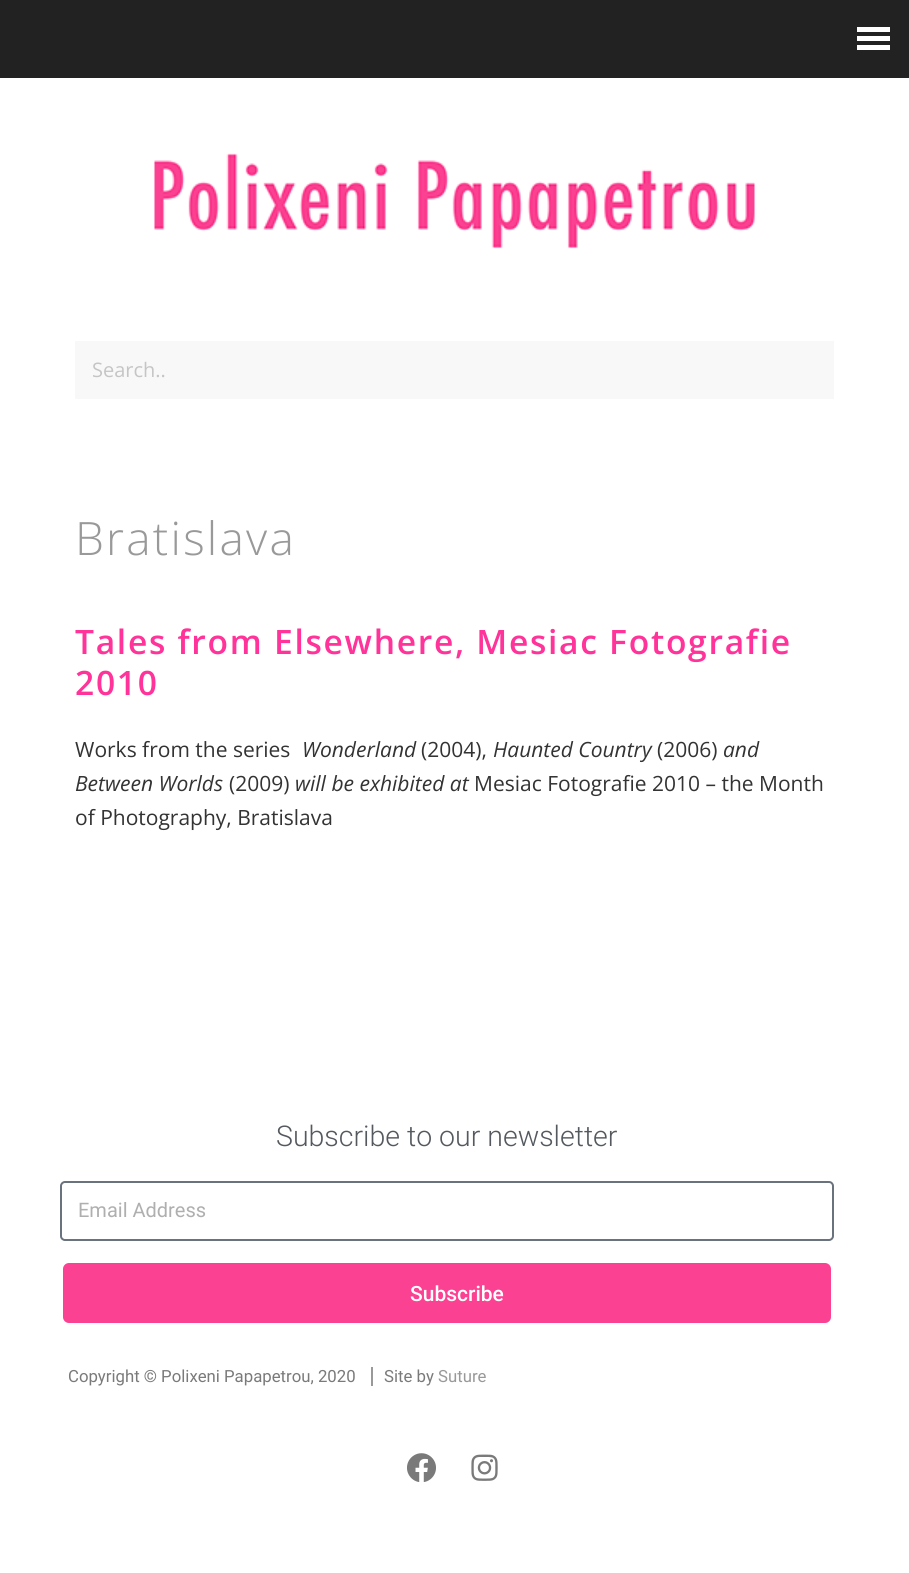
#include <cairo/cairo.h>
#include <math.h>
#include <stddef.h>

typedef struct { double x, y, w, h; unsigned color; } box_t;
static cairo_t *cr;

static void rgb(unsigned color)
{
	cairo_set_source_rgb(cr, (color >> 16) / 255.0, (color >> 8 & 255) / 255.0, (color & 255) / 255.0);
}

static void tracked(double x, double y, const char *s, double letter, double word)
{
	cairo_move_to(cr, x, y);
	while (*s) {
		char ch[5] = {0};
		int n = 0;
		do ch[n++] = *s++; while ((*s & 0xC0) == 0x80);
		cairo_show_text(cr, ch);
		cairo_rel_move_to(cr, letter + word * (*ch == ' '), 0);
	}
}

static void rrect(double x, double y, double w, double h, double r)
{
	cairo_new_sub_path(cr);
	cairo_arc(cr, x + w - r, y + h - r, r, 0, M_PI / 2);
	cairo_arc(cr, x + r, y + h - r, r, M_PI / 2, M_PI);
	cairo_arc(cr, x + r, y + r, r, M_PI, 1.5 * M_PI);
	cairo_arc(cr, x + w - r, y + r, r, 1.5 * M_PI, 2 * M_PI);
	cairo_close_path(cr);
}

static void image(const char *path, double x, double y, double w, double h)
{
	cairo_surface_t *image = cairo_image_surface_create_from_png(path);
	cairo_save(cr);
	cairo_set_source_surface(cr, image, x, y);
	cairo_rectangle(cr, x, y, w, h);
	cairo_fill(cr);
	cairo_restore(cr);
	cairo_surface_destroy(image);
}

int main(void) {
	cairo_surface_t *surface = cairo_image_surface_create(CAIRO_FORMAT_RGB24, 909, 1573);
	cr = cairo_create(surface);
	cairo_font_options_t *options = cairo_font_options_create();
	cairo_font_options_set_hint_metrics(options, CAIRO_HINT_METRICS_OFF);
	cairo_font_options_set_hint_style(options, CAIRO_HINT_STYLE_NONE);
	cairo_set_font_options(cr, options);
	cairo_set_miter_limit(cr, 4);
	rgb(0xffffff);
	cairo_paint(cr);
	{
		static const box_t items[] = {
			{0, 0, 909, 78, 0x222222},
			{857, 27, 33, 5, 0xffffff},
			{857, 36, 33, 5, 0xffffff},
			{857, 45, 33, 5, 0xffffff},
		};
		for (size_t i = 0; i < sizeof items / sizeof *items; i++) {
			rgb(items[i].color);
			cairo_rectangle(cr, items[i].x, items[i].y, items[i].w, items[i].h);
			cairo_fill(cr);
		}
	}
	image("img/1.png", 154, 153, 601, 96);
	rgb(0xf8f8f8);
	cairo_rectangle(cr, 75, 341, 759, 58);
	cairo_fill(cr);
	rrect(61, 1182, 772, 58, 4);
	rgb(0x69727d);
	cairo_stroke(cr);
	rgb(0xfb4191);
	rrect(63, 1263, 768, 60, 6);
	cairo_fill(cr);
	rgb(0x999999);
	cairo_rectangle(cr, 371, 1367, 2, 19);
	cairo_fill(cr);
	image("img/2.png", 407, 1453, 29, 29);
	image("img/3.png", 471, 1454, 27, 27);
	cairo_select_font_face(cr, "Open Sans", CAIRO_FONT_SLANT_NORMAL, CAIRO_FONT_WEIGHT_NORMAL);
	cairo_set_font_size(cr, 20);
	rgb(0xc5c5c5);
	cairo_move_to(cr, 92, 377);
	cairo_show_text(cr, "Search..");
	cairo_select_font_face(cr, "Open Sans Light", CAIRO_FONT_SLANT_NORMAL, CAIRO_FONT_WEIGHT_NORMAL);
	cairo_set_font_size(cr, 46);
	rgb(0x999999);
	tracked(75, 555, "Bratislava", 2.25, 0);
	cairo_select_font_face(cr, "Open Sans SemiBold", CAIRO_FONT_SLANT_NORMAL, CAIRO_FONT_WEIGHT_NORMAL);
	cairo_set_font_size(cr, 33.6);
	rgb(0xff3399);
	tracked(75, 654, "Tales from Elsewhere, Mesiac Fotografie", 1.7, 0);
	tracked(75, 695, "2010", 1.7, 0);
	cairo_select_font_face(cr, "Open Sans", CAIRO_FONT_SLANT_NORMAL, CAIRO_FONT_WEIGHT_NORMAL);
	cairo_set_font_size(cr, 21);
	rgb(0x333333);
	cairo_move_to(cr, 75, 757);
	cairo_show_text(cr, "Works from the series");
	cairo_select_font_face(cr, "Open Sans", CAIRO_FONT_SLANT_ITALIC, CAIRO_FONT_WEIGHT_NORMAL);
	cairo_move_to(cr, 302, 757);
	cairo_show_text(cr, "Wonderland");
	cairo_select_font_face(cr, "Open Sans", CAIRO_FONT_SLANT_NORMAL, CAIRO_FONT_WEIGHT_NORMAL);
	cairo_move_to(cr, 421, 757);
	cairo_show_text(cr, "(2004),");
	cairo_select_font_face(cr, "Open Sans", CAIRO_FONT_SLANT_ITALIC, CAIRO_FONT_WEIGHT_NORMAL);
	cairo_move_to(cr, 493, 757);
	cairo_show_text(cr, "Haunted Country");
	cairo_select_font_face(cr, "Open Sans", CAIRO_FONT_SLANT_NORMAL, CAIRO_FONT_WEIGHT_NORMAL);
	cairo_move_to(cr, 657, 757);
	cairo_show_text(cr, "(2006)");
	cairo_select_font_face(cr, "Open Sans", CAIRO_FONT_SLANT_ITALIC, CAIRO_FONT_WEIGHT_NORMAL);
	cairo_move_to(cr, 723, 757);
	cairo_show_text(cr, "and");
	cairo_move_to(cr, 75, 791);
	cairo_show_text(cr, "Between Worlds");
	cairo_select_font_face(cr, "Open Sans", CAIRO_FONT_SLANT_NORMAL, CAIRO_FONT_WEIGHT_NORMAL);
	cairo_move_to(cr, 229, 791);
	cairo_show_text(cr, "(2009)");
	cairo_select_font_face(cr, "Open Sans", CAIRO_FONT_SLANT_ITALIC, CAIRO_FONT_WEIGHT_NORMAL);
	cairo_move_to(cr, 295, 791);
	cairo_show_text(cr, "will be exhibited at");
	cairo_select_font_face(cr, "Open Sans", CAIRO_FONT_SLANT_NORMAL, CAIRO_FONT_WEIGHT_NORMAL);
	cairo_move_to(cr, 474, 791);
	cairo_show_text(cr, "Mesiac Fotografie 2010 – the Month");
	cairo_move_to(cr, 75, 825);
	cairo_show_text(cr, "of Photography, Bratislava");
	cairo_select_font_face(cr, "Roboto Light", CAIRO_FONT_SLANT_NORMAL, CAIRO_FONT_WEIGHT_NORMAL);
	cairo_set_font_size(cr, 28.5);
	rgb(0x54595f);
	cairo_move_to(cr, 276, 1146);
	cairo_show_text(cr, "Subscribe to our newsletter");
	cairo_select_font_face(cr, "Roboto", CAIRO_FONT_SLANT_NORMAL, CAIRO_FONT_WEIGHT_NORMAL);
	cairo_set_font_size(cr, 20);
	rgb(0xafafaf);
	cairo_move_to(cr, 78, 1217);
	cairo_show_text(cr, "Email Address");
	cairo_select_font_face(cr, "Roboto Medium", CAIRO_FONT_SLANT_NORMAL, CAIRO_FONT_WEIGHT_NORMAL);
	cairo_set_font_size(cr, 21);
	rgb(0xffffff);
	cairo_move_to(cr, 410, 1301);
	cairo_show_text(cr, "Subscribe");
	cairo_select_font_face(cr, "Roboto", CAIRO_FONT_SLANT_NORMAL, CAIRO_FONT_WEIGHT_NORMAL);
	cairo_set_font_size(cr, 16.75);
	rgb(0x7a7a7a);
	cairo_move_to(cr, 68, 1382);
	cairo_show_text(cr, "Copyright © Polixeni Papapetrou, 2020");
	cairo_move_to(cr, 384, 1382);
	cairo_show_text(cr, "Site by");
	rgb(0x999999);
	cairo_move_to(cr, 438, 1382);
	cairo_show_text(cr, "Suture");
	cairo_surface_write_to_png(surface, "page.png");
	cairo_font_options_destroy(options);
	cairo_destroy(cr);
	cairo_surface_destroy(surface);
	return 0;
}
